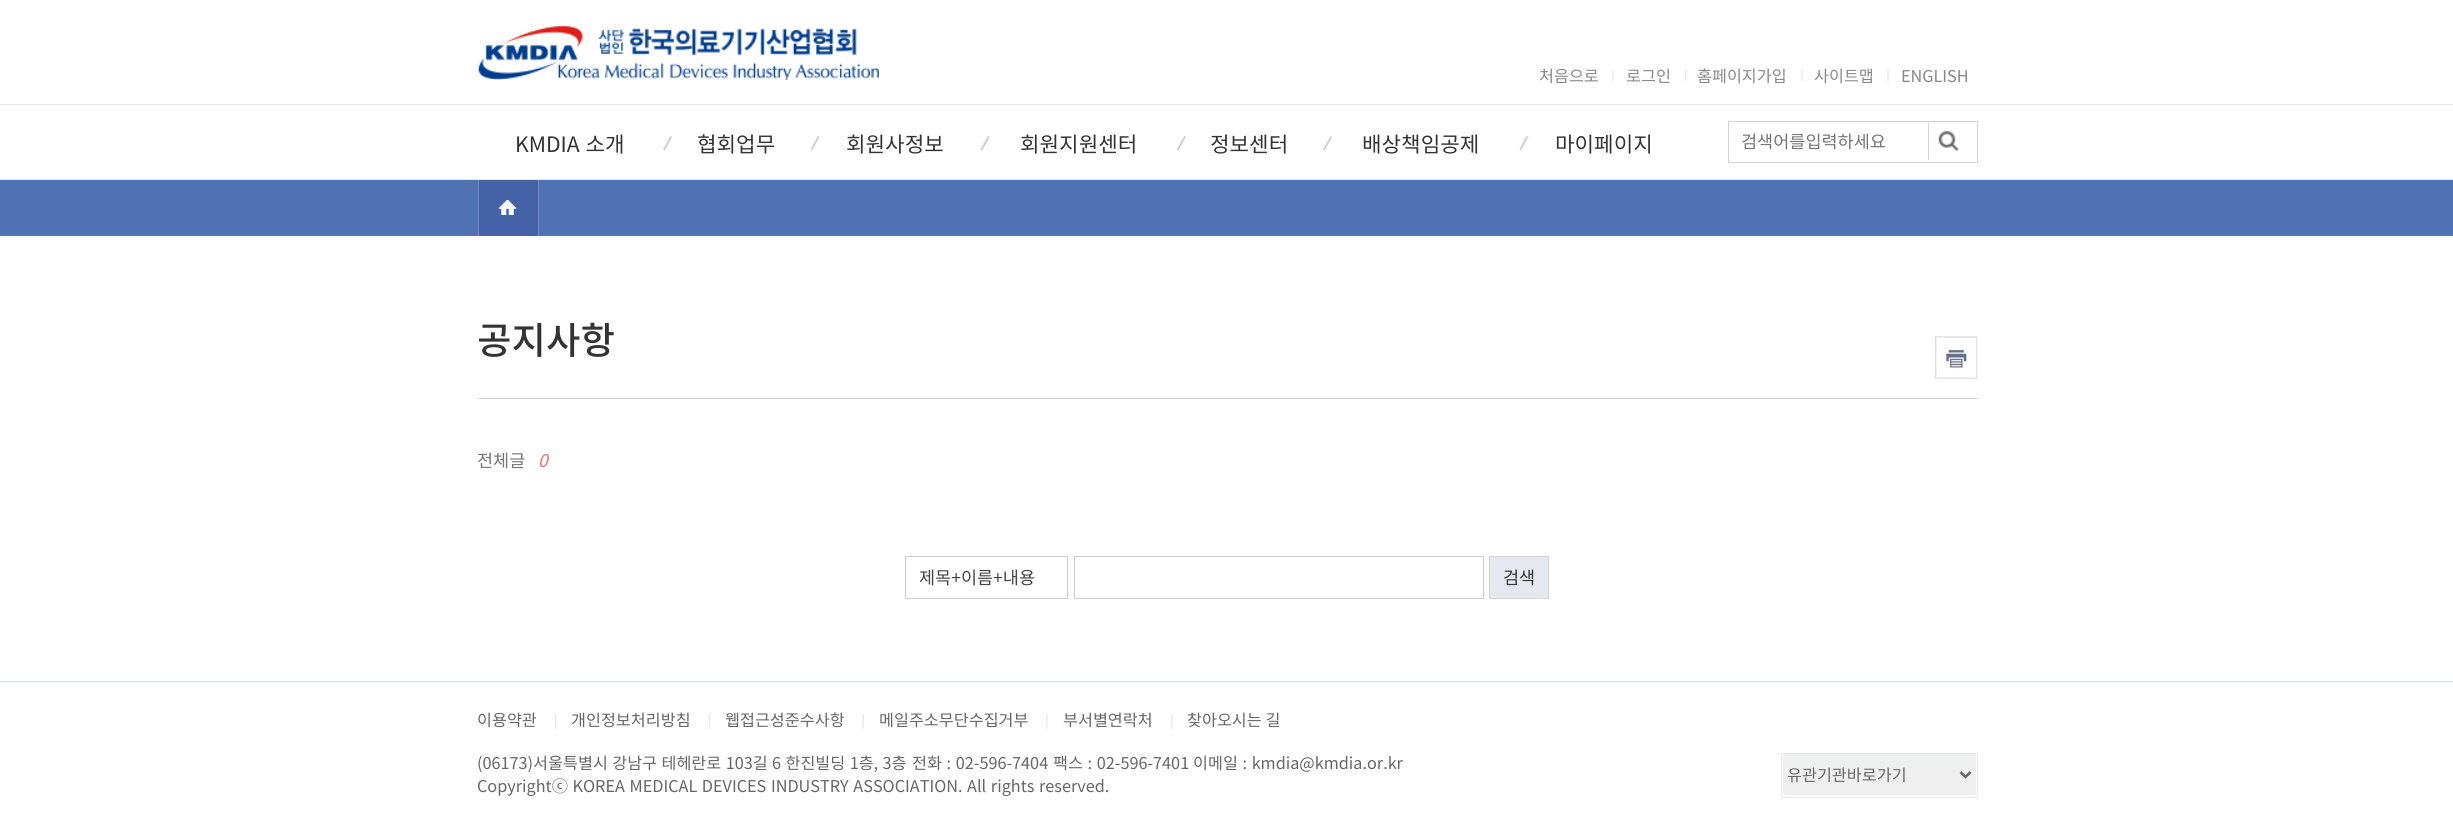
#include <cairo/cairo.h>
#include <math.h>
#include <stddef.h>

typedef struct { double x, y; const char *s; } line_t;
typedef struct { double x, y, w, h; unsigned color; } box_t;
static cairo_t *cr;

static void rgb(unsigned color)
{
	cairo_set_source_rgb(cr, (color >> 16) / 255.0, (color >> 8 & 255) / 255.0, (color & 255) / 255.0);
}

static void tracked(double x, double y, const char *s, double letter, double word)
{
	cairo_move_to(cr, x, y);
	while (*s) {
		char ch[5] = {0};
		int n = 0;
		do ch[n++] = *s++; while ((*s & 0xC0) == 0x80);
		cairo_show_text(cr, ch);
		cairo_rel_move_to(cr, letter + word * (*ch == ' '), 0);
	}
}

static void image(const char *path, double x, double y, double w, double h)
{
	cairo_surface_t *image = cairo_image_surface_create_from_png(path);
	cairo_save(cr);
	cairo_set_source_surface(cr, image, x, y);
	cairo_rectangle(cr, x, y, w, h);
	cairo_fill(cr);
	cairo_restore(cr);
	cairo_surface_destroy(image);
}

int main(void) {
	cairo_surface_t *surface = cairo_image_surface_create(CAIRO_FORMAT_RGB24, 2453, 829);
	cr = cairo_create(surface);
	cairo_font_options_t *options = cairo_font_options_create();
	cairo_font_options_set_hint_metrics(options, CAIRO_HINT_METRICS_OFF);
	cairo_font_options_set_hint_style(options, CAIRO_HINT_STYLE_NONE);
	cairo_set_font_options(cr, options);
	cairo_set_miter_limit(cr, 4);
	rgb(0xffffff);
	cairo_paint(cr);
	image("img/1.png", 478, 26, 401, 54);
	image("img/2.png", 1612, 70, 2, 12);
	image("img/3.png", 1685, 70, 2, 12);
	image("img/4.png", 1801, 70, 2, 12);
	image("img/2.png", 1887, 70, 2, 12);
	rgb(0xe5e8ef);
	cairo_rectangle(cr, 0, 104, 2453, 1);
	cairo_fill(cr);
	cairo_rectangle(cr, 0, 179, 2453, 1);
	cairo_fill(cr);
	image("img/5.png", 662, 135, 11, 16);
	image("img/6.png", 810, 135, 10, 16);
	image("img/6.png", 980, 135, 10, 16);
	image("img/7.png", 1176, 135, 10, 16);
	image("img/8.png", 1322, 135, 11, 16);
	image("img/9.png", 1518, 135, 11, 16);
	cairo_rectangle(cr, 1728.5, 121.5, 249, 41);
	rgb(0xd3d3d3);
	cairo_set_line_width(cr, 1);
	cairo_stroke(cr);
	cairo_rectangle(cr, 1928, 123, 1, 37);
	cairo_fill(cr);
	image("img/10.png", 1938, 131, 21, 21);
	rgb(0x5171b5);
	cairo_rectangle(cr, 0, 180, 2453, 56);
	cairo_fill(cr);
	rgb(0x4562a9);
	cairo_rectangle(cr, 479, 180, 59, 56);
	cairo_fill(cr);
	image("img/11.png", 498, 200, 19, 15);
	{
		static const box_t items[] = {
			{538, 180, 1, 56, 0x748dc4},
			{478, 180, 1, 56, 0x748dc4},
			{478, 398, 1500, 1, 0xd3d4d8},
		};
		for (size_t i = 0; i < sizeof items / sizeof *items; i++) {
			rgb(items[i].color);
			cairo_rectangle(cr, items[i].x, items[i].y, items[i].w, items[i].h);
			cairo_fill(cr);
		}
	}
	image("img/12.png", 1935, 336, 43, 43);
	cairo_rectangle(cr, 905.5, 556.5, 162, 42);
	rgb(0xcecece);
	cairo_stroke(cr);
	cairo_rectangle(cr, 1074.5, 556.5, 409, 42);
	cairo_stroke(cr);
	rgb(0xe5e8ef);
	cairo_rectangle(cr, 1489.5, 556.5, 59, 42);
	cairo_fill_preserve(cr);
	rgb(0xd3d4d8);
	cairo_stroke(cr);
	rgb(0xd1d8e4);
	cairo_rectangle(cr, 0, 681, 2453, 1);
	cairo_fill(cr);
	image("img/13.png", 555, 713, 2, 16);
	image("img/14.png", 708, 713, 2, 16);
	image("img/15.png", 862, 713, 2, 16);
	image("img/16.png", 1046, 713, 2, 16);
	image("img/16.png", 1171, 713, 2, 16);
	cairo_rectangle(cr, 1781.5, 753.5, 196, 44);
	rgb(0xe5e8ef);
	cairo_stroke(cr);
	rgb(0xefefef);
	cairo_rectangle(cr, 1783, 754, 193, 41);
	cairo_fill(cr);
	cairo_new_path(cr);
	cairo_move_to(cr, 1960.5, 772);
	cairo_line_to(cr, 1965.5, 777);
	cairo_line_to(cr, 1970.5, 772);
	rgb(0x666666);
	cairo_set_line_width(cr, 2.5);
	cairo_stroke(cr);
	cairo_select_font_face(cr, "Noto Sans KR", CAIRO_FONT_SLANT_NORMAL, CAIRO_FONT_WEIGHT_NORMAL);
	cairo_set_font_size(cr, 16.25);
	rgb(0x888888);
	{
		static const line_t items[] = {
			{1539, 82, "처음으로"},
			{1626, 82, "로그인"},
			{1697, 82, "홈페이지가입"},
			{1814, 82, "사이트맵"},
			{1901, 82, "ENGLISH"},
		};
		for (size_t i = 0; i < sizeof items / sizeof *items; i++) {
			cairo_move_to(cr, items[i].x, items[i].y);
			cairo_show_text(cr, items[i].s);
		}
	}
	cairo_set_font_size(cr, 21.25);
	rgb(0x333333);
	tracked(515, 152, "KMDIA 소개", 0, 1);
	{
		static const line_t items[] = {
			{697, 152, "협회업무"},
			{846, 152, "회원사정보"},
			{1020, 152, "회원지원센터"},
			{1210, 152, "정보센터"},
			{1362, 152, "배상책임공제"},
			{1555, 152, "마이페이지"},
		};
		for (size_t i = 0; i < sizeof items / sizeof *items; i++) {
			cairo_move_to(cr, items[i].x, items[i].y);
			cairo_show_text(cr, items[i].s);
		}
	}
	cairo_set_font_size(cr, 17.5);
	rgb(0x757575);
	cairo_move_to(cr, 1741, 148);
	cairo_show_text(cr, "검색어를입력하세요");
	cairo_select_font_face(cr, "Noto Sans KR Medium", CAIRO_FONT_SLANT_NORMAL, CAIRO_FONT_WEIGHT_NORMAL);
	cairo_set_font_size(cr, 37.5);
	rgb(0x333333);
	cairo_move_to(cr, 477, 354);
	cairo_show_text(cr, "공지사항");
	cairo_select_font_face(cr, "Noto Sans KR", CAIRO_FONT_SLANT_NORMAL, CAIRO_FONT_WEIGHT_NORMAL);
	cairo_set_font_size(cr, 17.5);
	rgb(0x757575);
	cairo_move_to(cr, 477, 467);
	cairo_show_text(cr, "전체글");
	cairo_select_font_face(cr, "Noto Sans KR", CAIRO_FONT_SLANT_ITALIC, CAIRO_FONT_WEIGHT_NORMAL);
	rgb(0xf26c69);
	cairo_move_to(cr, 538, 467);
	cairo_show_text(cr, "0");
	cairo_select_font_face(cr, "Noto Sans KR", CAIRO_FONT_SLANT_NORMAL, CAIRO_FONT_WEIGHT_NORMAL);
	rgb(0x444444);
	cairo_move_to(cr, 919, 584);
	cairo_show_text(cr, "제목+이름+내용");
	rgb(0x333333);
	cairo_move_to(cr, 1503, 584);
	cairo_show_text(cr, "검색");
	cairo_set_font_size(cr, 16.25);
	rgb(0x666666);
	{
		static const line_t items[] = {
			{477, 726, "이용약관"},
			{571, 726, "개인정보처리방침"},
			{725, 726, "웹접근성준수사항"},
			{879, 726, "메일주소무단수집거부"},
			{1063, 726, "부서별연락처"},
			{1187, 726, "찾아오시는 길"},
		};
		for (size_t i = 0; i < sizeof items / sizeof *items; i++) {
			cairo_move_to(cr, items[i].x, items[i].y);
			cairo_show_text(cr, items[i].s);
		}
	}
	tracked(477, 769, "(06173)서울특별시 강남구 테헤란로 103길 6 한진빌딩 1층, 3층", 0, 0.75);
	{
		static const line_t items[] = {
			{912, 769, "전화 : 02-596-7404"},
			{1053, 769, "팩스 : 02-596-7401"},
			{1193, 769, "이메일 : kmdia@kmdia.or.kr"},
			{477, 792, "Copyrightⓒ KOREA MEDICAL DEVICES INDUSTRY ASSOCIATION. All rights reserved."},
		};
		for (size_t i = 0; i < sizeof items / sizeof *items; i++) {
			tracked(items[i].x, items[i].y, items[i].s, 0, 1);
		}
	}
	cairo_move_to(cr, 1787, 781);
	cairo_show_text(cr, "유관기관바로가기");
	cairo_surface_write_to_png(surface, "page.png");
	cairo_font_options_destroy(options);
	cairo_destroy(cr);
	cairo_surface_destroy(surface);
	return 0;
}
